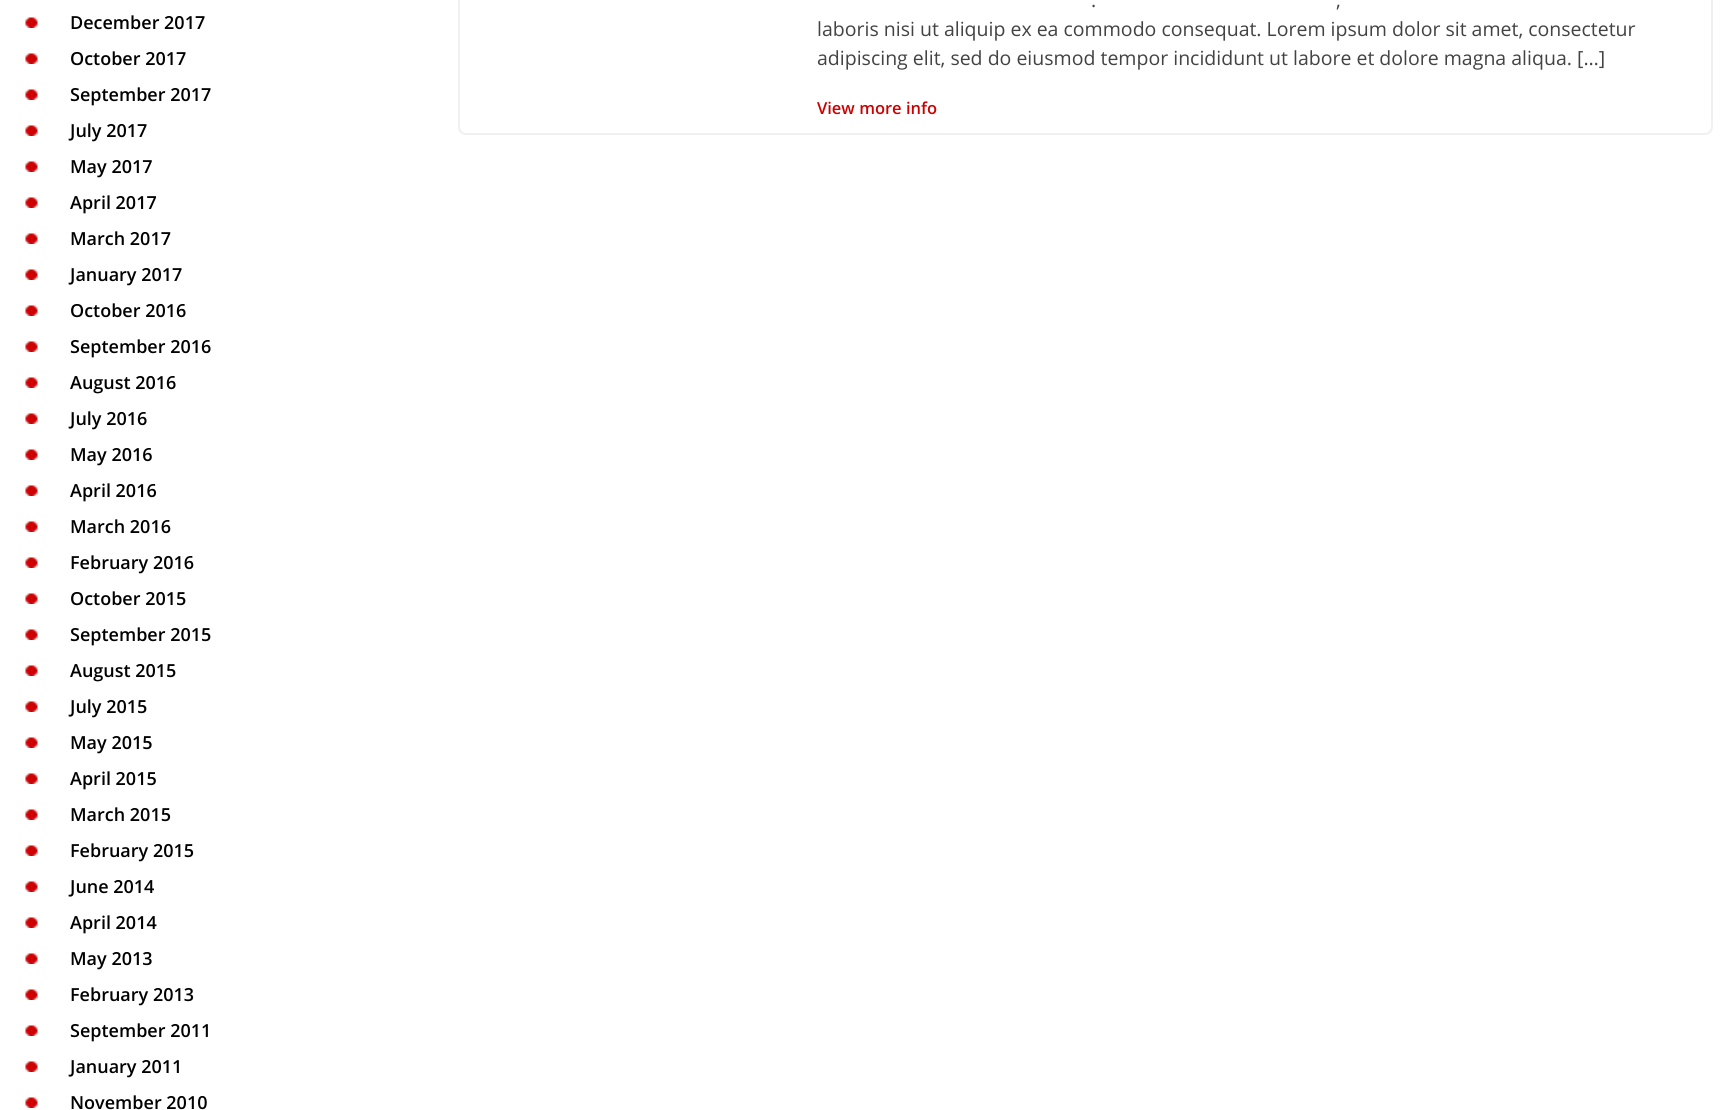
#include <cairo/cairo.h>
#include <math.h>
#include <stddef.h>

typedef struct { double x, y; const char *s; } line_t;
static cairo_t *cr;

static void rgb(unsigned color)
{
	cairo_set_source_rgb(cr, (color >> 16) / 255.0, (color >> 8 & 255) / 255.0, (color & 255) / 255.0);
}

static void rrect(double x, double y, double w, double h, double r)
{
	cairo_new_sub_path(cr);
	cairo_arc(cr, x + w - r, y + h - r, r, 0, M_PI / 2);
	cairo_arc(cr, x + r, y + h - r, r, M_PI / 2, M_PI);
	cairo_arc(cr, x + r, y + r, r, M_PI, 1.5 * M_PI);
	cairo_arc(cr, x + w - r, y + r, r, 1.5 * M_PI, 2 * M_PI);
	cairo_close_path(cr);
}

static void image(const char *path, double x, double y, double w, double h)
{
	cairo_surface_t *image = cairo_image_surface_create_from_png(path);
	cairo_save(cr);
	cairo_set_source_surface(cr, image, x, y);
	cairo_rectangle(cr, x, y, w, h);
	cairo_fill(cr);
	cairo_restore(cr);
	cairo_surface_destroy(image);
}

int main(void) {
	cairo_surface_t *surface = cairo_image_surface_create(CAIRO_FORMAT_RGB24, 1729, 1110);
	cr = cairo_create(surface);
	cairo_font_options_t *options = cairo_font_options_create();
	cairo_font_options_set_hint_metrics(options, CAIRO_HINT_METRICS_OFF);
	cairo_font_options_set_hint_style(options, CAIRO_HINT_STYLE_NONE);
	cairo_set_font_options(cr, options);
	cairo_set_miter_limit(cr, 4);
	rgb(0xffffff);
	cairo_paint(cr);
	image("img/1.png", 25, 17, 13, 11);
	image("img/1.png", 25, 53, 13, 11);
	image("img/1.png", 25, 89, 13, 11);
	image("img/1.png", 25, 125, 13, 11);
	image("img/1.png", 25, 161, 13, 11);
	image("img/1.png", 25, 197, 13, 11);
	image("img/1.png", 25, 233, 13, 11);
	image("img/1.png", 25, 269, 13, 11);
	image("img/1.png", 25, 305, 13, 11);
	image("img/1.png", 25, 341, 13, 11);
	image("img/1.png", 25, 377, 13, 11);
	image("img/1.png", 25, 413, 13, 11);
	image("img/1.png", 25, 449, 13, 11);
	image("img/1.png", 25, 485, 13, 11);
	image("img/1.png", 25, 521, 13, 11);
	image("img/1.png", 25, 557, 13, 11);
	image("img/1.png", 25, 593, 13, 11);
	image("img/1.png", 25, 629, 13, 11);
	image("img/1.png", 25, 665, 13, 11);
	image("img/1.png", 25, 701, 13, 11);
	image("img/1.png", 25, 737, 13, 11);
	image("img/1.png", 25, 773, 13, 11);
	image("img/1.png", 25, 809, 13, 11);
	image("img/1.png", 25, 845, 13, 11);
	image("img/1.png", 25, 881, 13, 11);
	image("img/1.png", 25, 917, 13, 11);
	image("img/1.png", 25, 953, 13, 11);
	image("img/1.png", 25, 989, 13, 11);
	image("img/1.png", 25, 1025, 13, 11);
	image("img/1.png", 25, 1061, 13, 11);
	image("img/1.png", 25, 1097, 13, 11);
	rrect(459, -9, 1253, 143, 7);
	rgb(0xf0f0f0);
	cairo_stroke(cr);
	cairo_select_font_face(cr, "Open Sans SemiBold", CAIRO_FONT_SLANT_NORMAL, CAIRO_FONT_WEIGHT_NORMAL);
	cairo_set_font_size(cr, 18);
	rgb(0x000000);
	{
		static const line_t items[] = {
			{70, 29, "December 2017"},
			{70, 65, "October 2017"},
			{70, 101, "September 2017"},
			{70, 137, "July 2017"},
			{70, 173, "May 2017"},
			{70, 209, "April 2017"},
			{70, 245, "March 2017"},
			{70, 281, "January 2017"},
			{70, 317, "October 2016"},
			{70, 353, "September 2016"},
			{70, 389, "August 2016"},
			{70, 425, "July 2016"},
			{70, 461, "May 2016"},
			{70, 497, "April 2016"},
			{70, 533, "March 2016"},
			{70, 569, "February 2016"},
			{70, 605, "October 2015"},
			{70, 641, "September 2015"},
			{70, 677, "August 2015"},
			{70, 713, "July 2015"},
			{70, 749, "May 2015"},
			{70, 785, "April 2015"},
			{70, 821, "March 2015"},
			{70, 857, "February 2015"},
			{70, 893, "June 2014"},
			{70, 929, "April 2014"},
			{70, 965, "May 2013"},
			{70, 1001, "February 2013"},
			{70, 1037, "September 2011"},
			{70, 1073, "January 2011"},
			{70, 1109, "November 2010"},
		};
		for (size_t i = 0; i < sizeof items / sizeof *items; i++) {
			cairo_move_to(cr, items[i].x, items[i].y);
			cairo_show_text(cr, items[i].s);
		}
	}
	cairo_select_font_face(cr, "Open Sans", CAIRO_FONT_SLANT_NORMAL, CAIRO_FONT_WEIGHT_NORMAL);
	cairo_set_font_size(cr, 19.5);
	rgb(0x434343);
	{
		static const line_t items[] = {
			{1091, 7, "."},
			{1336, 7, ","},
			{817, 36, "laboris nisi ut aliquip ex ea commodo consequat. Lorem ipsum dolor sit amet, consectetur"},
			{817, 65, "adipiscing elit, sed do eiusmod tempor incididunt ut labore et dolore magna aliqua. […]"},
		};
		for (size_t i = 0; i < sizeof items / sizeof *items; i++) {
			cairo_move_to(cr, items[i].x, items[i].y);
			cairo_show_text(cr, items[i].s);
		}
	}
	cairo_select_font_face(cr, "Open Sans SemiBold", CAIRO_FONT_SLANT_NORMAL, CAIRO_FONT_WEIGHT_NORMAL);
	cairo_set_font_size(cr, 16.5);
	rgb(0xcc0000);
	cairo_move_to(cr, 817, 114);
	cairo_show_text(cr, "View more info");
	cairo_surface_write_to_png(surface, "page.png");
	cairo_font_options_destroy(options);
	cairo_destroy(cr);
	cairo_surface_destroy(surface);
	return 0;
}
